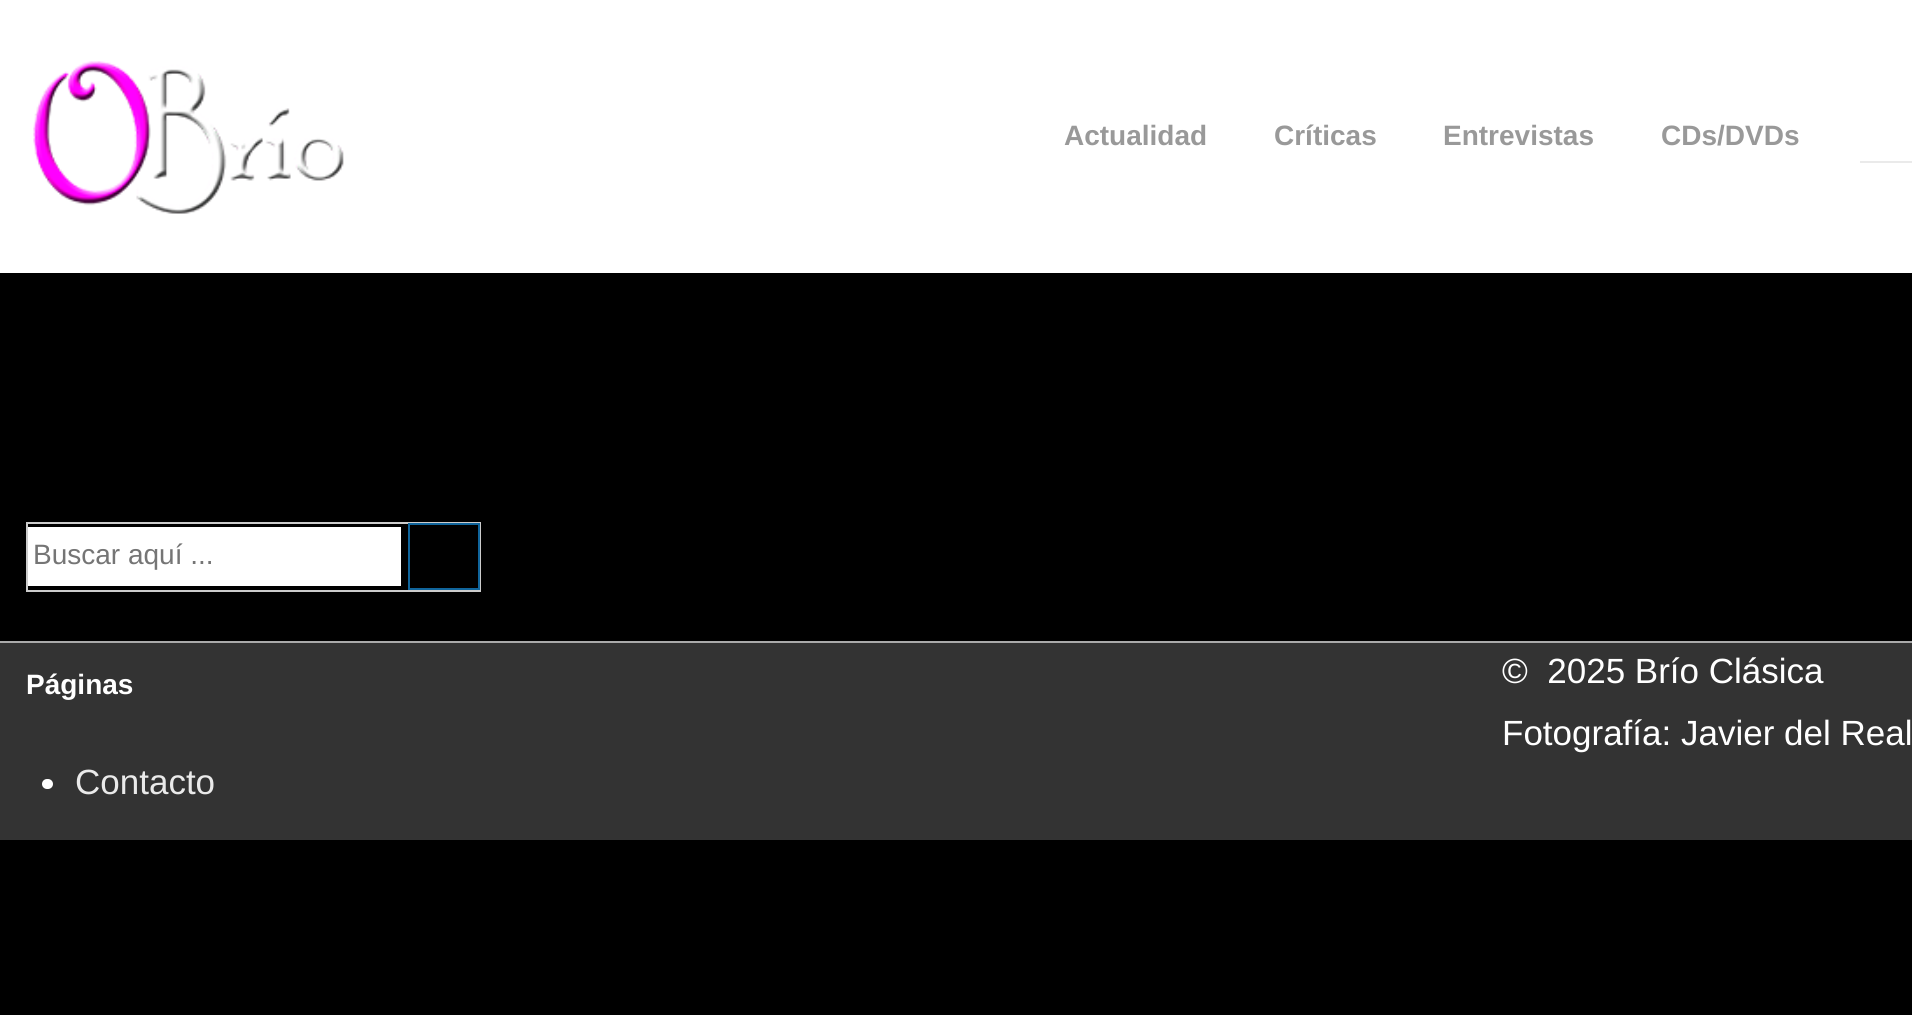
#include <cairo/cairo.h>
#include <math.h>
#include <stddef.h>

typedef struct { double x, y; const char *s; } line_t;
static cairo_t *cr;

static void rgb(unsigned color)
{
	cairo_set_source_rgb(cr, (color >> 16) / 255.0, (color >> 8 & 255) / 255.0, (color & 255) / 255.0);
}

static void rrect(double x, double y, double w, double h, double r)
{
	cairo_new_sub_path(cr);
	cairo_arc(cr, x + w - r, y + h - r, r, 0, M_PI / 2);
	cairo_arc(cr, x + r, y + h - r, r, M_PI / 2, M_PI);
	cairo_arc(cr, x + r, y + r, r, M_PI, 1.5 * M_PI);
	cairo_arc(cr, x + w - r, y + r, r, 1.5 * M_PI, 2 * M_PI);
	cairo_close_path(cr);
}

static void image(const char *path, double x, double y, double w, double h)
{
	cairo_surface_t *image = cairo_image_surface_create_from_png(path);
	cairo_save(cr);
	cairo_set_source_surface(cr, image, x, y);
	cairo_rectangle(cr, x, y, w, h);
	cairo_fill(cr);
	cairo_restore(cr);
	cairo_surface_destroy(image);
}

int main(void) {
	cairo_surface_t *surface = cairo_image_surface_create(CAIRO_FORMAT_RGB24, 1912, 1015);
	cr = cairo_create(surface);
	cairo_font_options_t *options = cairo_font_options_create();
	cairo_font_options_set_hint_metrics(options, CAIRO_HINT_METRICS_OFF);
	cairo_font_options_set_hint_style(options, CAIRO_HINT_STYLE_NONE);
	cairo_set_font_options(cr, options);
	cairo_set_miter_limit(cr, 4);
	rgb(0x000000);
	cairo_paint(cr);
	rgb(0xffffff);
	cairo_rectangle(cr, 0, 0, 1912, 273);
	cairo_fill(cr);
	image("img/1.png", 33, 61, 311, 153);
	rgb(0xeaeaea);
	cairo_rectangle(cr, 1860, 161, 52, 2);
	cairo_fill(cr);
	cairo_rectangle(cr, 27, 523, 453, 68);
	rgb(0xcccccc);
	cairo_stroke(cr);
	rgb(0xffffff);
	cairo_rectangle(cr, 28, 527, 373, 59);
	cairo_fill(cr);
	cairo_rectangle(cr, 409, 524, 70, 65);
	rgb(0x10659c);
	cairo_stroke(cr);
	rgb(0x333333);
	cairo_rectangle(cr, 0, 643, 1912, 197);
	cairo_fill(cr);
	rgb(0xaaaaaa);
	cairo_rectangle(cr, 0, 641, 1912, 2);
	cairo_fill(cr);
	rgb(0xffffff);
	rrect(42, 779, 11, 10, 5);
	cairo_fill(cr);
	cairo_select_font_face(cr, "Liberation Sans", CAIRO_FONT_SLANT_NORMAL, CAIRO_FONT_WEIGHT_BOLD);
	cairo_set_font_size(cr, 28);
	rgb(0x999999);
	{
		static const line_t items[] = {
			{1064, 145, "Actualidad"},
			{1274, 145, "Críticas"},
			{1443, 145, "Entrevistas"},
			{1661, 145, "CDs/DVDs"},
		};
		for (size_t i = 0; i < sizeof items / sizeof *items; i++) {
			cairo_move_to(cr, items[i].x, items[i].y);
			cairo_show_text(cr, items[i].s);
		}
	}
	cairo_select_font_face(cr, "Liberation Sans", CAIRO_FONT_SLANT_NORMAL, CAIRO_FONT_WEIGHT_NORMAL);
	rgb(0x757575);
	cairo_move_to(cr, 33, 564);
	cairo_show_text(cr, "Buscar aquí ...");
	cairo_select_font_face(cr, "Liberation Sans", CAIRO_FONT_SLANT_NORMAL, CAIRO_FONT_WEIGHT_BOLD);
	rgb(0xffffff);
	cairo_move_to(cr, 26, 694);
	cairo_show_text(cr, "Páginas");
	cairo_select_font_face(cr, "Liberation Sans", CAIRO_FONT_SLANT_NORMAL, CAIRO_FONT_WEIGHT_NORMAL);
	cairo_set_font_size(cr, 35);
	rgb(0xeaeaea);
	cairo_move_to(cr, 75, 794);
	cairo_show_text(cr, "Contacto");
	rgb(0xffffff);
	cairo_move_to(cr, 1502, 683);
	cairo_show_text(cr, "©  2025 Brío Clásica");
	cairo_move_to(cr, 1502, 745);
	cairo_show_text(cr, "Fotografía: Javier del Real");
	cairo_surface_write_to_png(surface, "page.png");
	cairo_font_options_destroy(options);
	cairo_destroy(cr);
	cairo_surface_destroy(surface);
	return 0;
}
